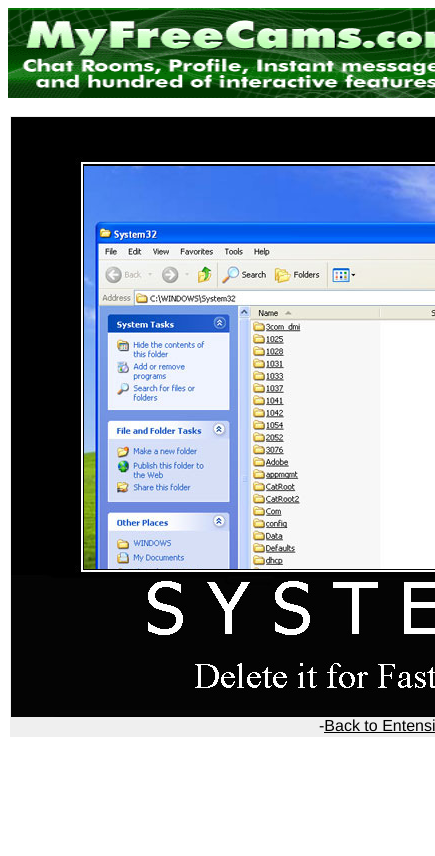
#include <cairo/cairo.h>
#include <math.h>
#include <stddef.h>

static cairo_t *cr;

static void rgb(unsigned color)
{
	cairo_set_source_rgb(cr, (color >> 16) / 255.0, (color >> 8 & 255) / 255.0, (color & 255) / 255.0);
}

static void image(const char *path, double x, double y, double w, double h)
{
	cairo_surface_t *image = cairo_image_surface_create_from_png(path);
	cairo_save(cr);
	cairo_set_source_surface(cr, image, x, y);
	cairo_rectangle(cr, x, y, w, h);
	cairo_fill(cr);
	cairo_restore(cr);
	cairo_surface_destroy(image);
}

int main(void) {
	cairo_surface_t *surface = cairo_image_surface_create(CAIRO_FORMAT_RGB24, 435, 856);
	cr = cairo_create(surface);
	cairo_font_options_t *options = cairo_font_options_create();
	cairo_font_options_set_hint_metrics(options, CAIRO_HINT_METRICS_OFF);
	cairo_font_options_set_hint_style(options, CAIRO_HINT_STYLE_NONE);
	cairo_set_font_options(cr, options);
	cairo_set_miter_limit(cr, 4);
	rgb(0xffffff);
	cairo_paint(cr);
	image("img/1.png", 8, 8, 427, 90);
	rgb(0xefefef);
	cairo_rectangle(cr, 10, 116, 425, 621);
	cairo_fill(cr);
	image("img/2.png", 11, 117, 424, 600);
	rgb(0x000000);
	cairo_rectangle(cr, 324, 732, 111, 1);
	cairo_fill(cr);
	cairo_select_font_face(cr, "Liberation Sans", CAIRO_FONT_SLANT_NORMAL, CAIRO_FONT_WEIGHT_NORMAL);
	cairo_set_font_size(cr, 16);
	cairo_move_to(cr, 319, 731);
	cairo_show_text(cr, "-Back to Entensi");
	cairo_surface_write_to_png(surface, "page.png");
	cairo_font_options_destroy(options);
	cairo_destroy(cr);
	cairo_surface_destroy(surface);
	return 0;
}
